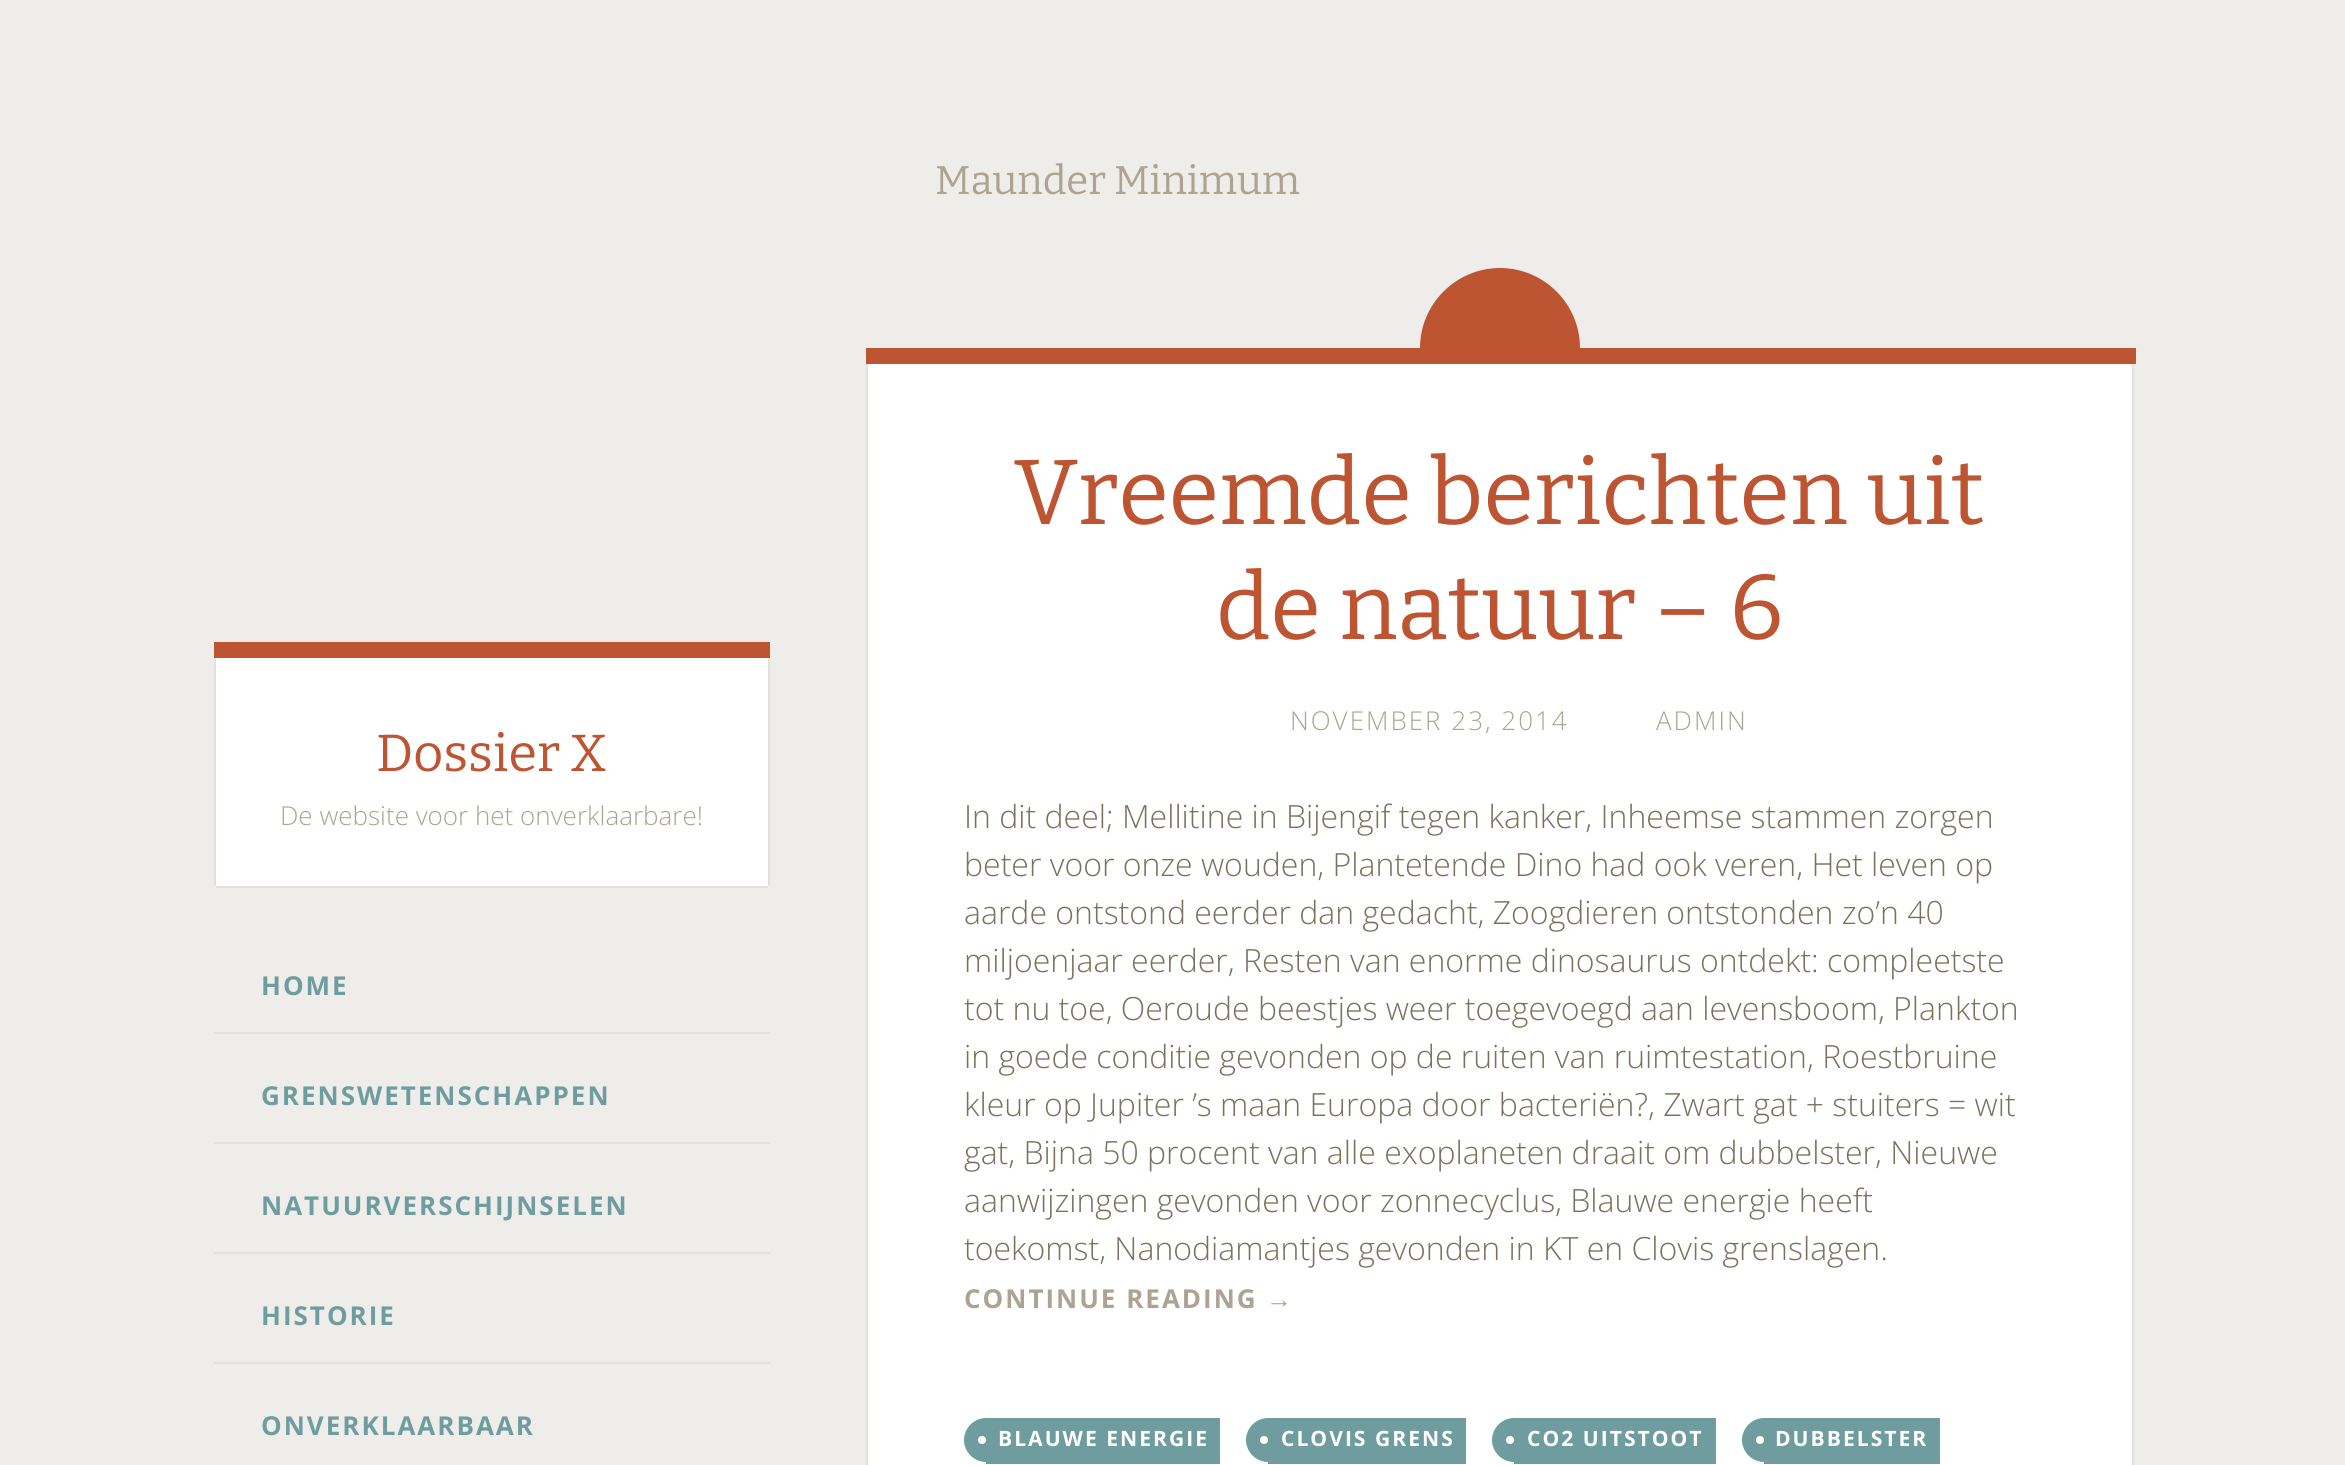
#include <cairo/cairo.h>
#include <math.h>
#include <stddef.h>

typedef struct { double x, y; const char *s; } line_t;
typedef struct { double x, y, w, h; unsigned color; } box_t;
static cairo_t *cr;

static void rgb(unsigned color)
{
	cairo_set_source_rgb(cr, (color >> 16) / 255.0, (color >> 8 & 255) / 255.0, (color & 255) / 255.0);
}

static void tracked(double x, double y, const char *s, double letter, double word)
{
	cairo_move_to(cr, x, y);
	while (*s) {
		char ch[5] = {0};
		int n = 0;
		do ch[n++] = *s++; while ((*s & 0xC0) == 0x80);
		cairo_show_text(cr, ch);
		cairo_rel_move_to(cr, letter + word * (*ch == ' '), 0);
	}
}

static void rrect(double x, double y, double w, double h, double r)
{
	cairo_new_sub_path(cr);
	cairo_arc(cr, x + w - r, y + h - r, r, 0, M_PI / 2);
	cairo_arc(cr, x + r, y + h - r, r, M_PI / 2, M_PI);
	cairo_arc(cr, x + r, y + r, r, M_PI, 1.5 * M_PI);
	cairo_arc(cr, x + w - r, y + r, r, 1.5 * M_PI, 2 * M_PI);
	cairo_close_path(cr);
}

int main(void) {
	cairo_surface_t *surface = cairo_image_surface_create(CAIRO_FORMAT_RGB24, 2345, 1465);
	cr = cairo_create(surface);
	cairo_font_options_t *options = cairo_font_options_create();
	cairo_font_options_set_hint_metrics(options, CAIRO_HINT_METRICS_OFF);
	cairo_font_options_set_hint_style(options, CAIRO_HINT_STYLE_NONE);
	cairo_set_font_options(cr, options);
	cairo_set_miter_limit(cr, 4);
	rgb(0xefedea);
	cairo_paint(cr);
	rgb(0xffffff);
	cairo_new_path(cr);
	cairo_move_to(cr, 214, 658);
	cairo_line_to(cr, 770, 658);
	cairo_line_to(cr, 770, 884);
	cairo_curve_to(cr, 770, 886, 768, 888, 766, 888);
	cairo_line_to(cr, 218, 888);
	cairo_curve_to(cr, 216, 888, 214, 886, 214, 884);
	cairo_close_path(cr);
	cairo_fill(cr);
	{
		static const box_t items[] = {
			{768, 658, 2, 228, 0xe4e1dc},
			{216, 886, 552, 2, 0xe4e1dc},
			{214, 658, 2, 228, 0xe4e1dc},
			{214, 642, 556, 16, 0xbd5532},
			{214, 1032, 556, 2, 0xe4e1dc},
			{214, 1142, 556, 2, 0xe4e1dc},
			{214, 1252, 556, 2, 0xe4e1dc},
			{214, 1362, 556, 2, 0xe4e1dc},
		};
		for (size_t i = 0; i < sizeof items / sizeof *items; i++) {
			rgb(items[i].color);
			cairo_rectangle(cr, items[i].x, items[i].y, items[i].w, items[i].h);
			cairo_fill(cr);
		}
	}
	rgb(0xffffff);
	rrect(867, 363, 1266, 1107, 3);
	cairo_fill_preserve(cr);
	rgb(0xe4e1dc);
	cairo_stroke(cr);
	rgb(0xbd5532);
	cairo_new_path(cr);
	cairo_move_to(cr, 1500, 268);
	cairo_curve_to(cr, 1544, 268, 1580, 304, 1580, 348);
	cairo_line_to(cr, 1420, 348);
	cairo_curve_to(cr, 1420, 304, 1456, 268, 1500, 268);
	cairo_close_path(cr);
	cairo_fill(cr);
	cairo_rectangle(cr, 866, 348, 1270, 16);
	cairo_fill(cr);
	rgb(0x6f9d9f);
	cairo_rectangle(cr, 986, 1418, 234, 46);
	cairo_fill(cr);
	cairo_new_path(cr);
	cairo_move_to(cr, 986, 1418);
	cairo_line_to(cr, 986, 1462);
	cairo_curve_to(cr, 974, 1462, 964, 1452, 964, 1440);
	cairo_curve_to(cr, 964, 1428, 974, 1418, 986, 1418);
	cairo_close_path(cr);
	cairo_fill(cr);
	rgb(0xffffff);
	cairo_arc(cr, 982, 1440, 4, 0, 2 * M_PI);
	cairo_fill(cr);
	rgb(0x6f9d9f);
	cairo_rectangle(cr, 1268, 1418, 198, 46);
	cairo_fill(cr);
	cairo_new_path(cr);
	cairo_move_to(cr, 1268, 1418);
	cairo_line_to(cr, 1268, 1462);
	cairo_curve_to(cr, 1256, 1462, 1246, 1452, 1246, 1440);
	cairo_curve_to(cr, 1246, 1428, 1256, 1418, 1268, 1418);
	cairo_close_path(cr);
	cairo_fill(cr);
	rgb(0xffffff);
	cairo_arc(cr, 1264, 1440, 4, 0, 2 * M_PI);
	cairo_fill(cr);
	rgb(0x6f9d9f);
	cairo_rectangle(cr, 1514, 1418, 202, 46);
	cairo_fill(cr);
	cairo_new_path(cr);
	cairo_move_to(cr, 1514, 1418);
	cairo_line_to(cr, 1514, 1462);
	cairo_curve_to(cr, 1502, 1462, 1492, 1452, 1492, 1440);
	cairo_curve_to(cr, 1492, 1428, 1502, 1418, 1514, 1418);
	cairo_close_path(cr);
	cairo_fill(cr);
	rgb(0xffffff);
	cairo_arc(cr, 1510, 1440, 4, 0, 2 * M_PI);
	cairo_fill(cr);
	rgb(0x6f9d9f);
	cairo_rectangle(cr, 1764, 1418, 176, 46);
	cairo_fill(cr);
	cairo_new_path(cr);
	cairo_move_to(cr, 1764, 1418);
	cairo_line_to(cr, 1764, 1462);
	cairo_curve_to(cr, 1752, 1462, 1742, 1452, 1742, 1440);
	cairo_curve_to(cr, 1742, 1428, 1752, 1418, 1764, 1418);
	cairo_close_path(cr);
	cairo_fill(cr);
	rgb(0xffffff);
	cairo_arc(cr, 1760, 1440, 4, 0, 2 * M_PI);
	cairo_fill(cr);
	cairo_select_font_face(cr, "Bitter", CAIRO_FONT_SLANT_NORMAL, CAIRO_FONT_WEIGHT_NORMAL);
	cairo_set_font_size(cr, 52);
	rgb(0xbd5532);
	cairo_move_to(cr, 376, 771);
	cairo_show_text(cr, "Dossier X");
	cairo_select_font_face(cr, "Open Sans Light", CAIRO_FONT_SLANT_NORMAL, CAIRO_FONT_WEIGHT_NORMAL);
	cairo_set_font_size(cr, 26);
	rgb(0xada393);
	cairo_move_to(cr, 280, 825);
	cairo_show_text(cr, "De website voor het onverklaarbare!");
	cairo_select_font_face(cr, "Open Sans", CAIRO_FONT_SLANT_NORMAL, CAIRO_FONT_WEIGHT_BOLD);
	rgb(0x6f9d9f);
	{
		static const line_t items[] = {
			{261, 995, "HOME"},
			{261, 1105, "GRENSWETENSCHAPPEN"},
			{261, 1215, "NATUURVERSCHIJNSELEN"},
			{261, 1325, "HISTORIE"},
			{261, 1435, "ONVERKLAARBAAR"},
		};
		for (size_t i = 0; i < sizeof items / sizeof *items; i++) {
			tracked(items[i].x, items[i].y, items[i].s, 2, 0);
		}
	}
	cairo_select_font_face(cr, "Bitter", CAIRO_FONT_SLANT_NORMAL, CAIRO_FONT_WEIGHT_NORMAL);
	cairo_set_font_size(cr, 40);
	rgb(0xada393);
	cairo_move_to(cr, 935, 194);
	cairo_show_text(cr, "Maunder Minimum");
	cairo_set_font_size(cr, 92);
	rgb(0xbd5532);
	cairo_move_to(cr, 1014, 524);
	cairo_show_text(cr, "Vreemde berichten uit");
	cairo_move_to(cr, 1216, 639);
	cairo_show_text(cr, "de natuur – 6");
	cairo_select_font_face(cr, "Open Sans Light", CAIRO_FONT_SLANT_NORMAL, CAIRO_FONT_WEIGHT_NORMAL);
	cairo_set_font_size(cr, 26);
	rgb(0xada393);
	tracked(1290, 730, "NOVEMBER 23, 2014", 2, 0);
	tracked(1656, 730, "ADMIN", 2, 0);
	cairo_set_font_size(cr, 32);
	rgb(0x7c705e);
	{
		static const line_t items[] = {
			{964, 828, "In dit deel; Mellitine in Bijengif tegen kanker, Inheemse stammen zorgen"},
			{964, 876, "beter voor onze wouden, Plantetende Dino had ook veren, Het leven op"},
			{964, 924, "aarde ontstond eerder dan gedacht, Zoogdieren ontstonden zo’n 40"},
			{964, 972, "miljoenjaar eerder, Resten van enorme dinosaurus ontdekt: compleetste"},
			{964, 1020, "tot nu toe, Oeroude beestjes weer toegevoegd aan levensboom, Plankton"},
			{964, 1068, "in goede conditie gevonden op de ruiten van ruimtestation, Roestbruine"},
			{964, 1116, "kleur op Jupiter ’s maan Europa door bacteriën?, Zwart gat + stuiters = wit"},
			{964, 1164, "gat, Bijna 50 procent van alle exoplaneten draait om dubbelster, Nieuwe"},
			{964, 1212, "aanwijzingen gevonden voor zonnecyclus, Blauwe energie heeft"},
			{964, 1260, "toekomst, Nanodiamantjes gevonden in KT en Clovis grenslagen."},
		};
		for (size_t i = 0; i < sizeof items / sizeof *items; i++) {
			cairo_move_to(cr, items[i].x, items[i].y);
			cairo_show_text(cr, items[i].s);
		}
	}
	cairo_select_font_face(cr, "Open Sans", CAIRO_FONT_SLANT_NORMAL, CAIRO_FONT_WEIGHT_BOLD);
	cairo_set_font_size(cr, 26);
	rgb(0xada393);
	tracked(964, 1308, "CONTINUE READING", 2, 0);
	cairo_select_font_face(cr, "Liberation Sans", CAIRO_FONT_SLANT_NORMAL, CAIRO_FONT_WEIGHT_BOLD);
	tracked(1266, 1308, "→", 2, 0);
	cairo_select_font_face(cr, "Open Sans", CAIRO_FONT_SLANT_NORMAL, CAIRO_FONT_WEIGHT_BOLD);
	cairo_set_font_size(cr, 21.1);
	rgb(0xffffff);
	{
		static const line_t items[] = {
			{998, 1446, "BLAUWE ENERGIE"},
			{1281, 1446, "CLOVIS GRENS"},
			{1527, 1446, "CO2 UITSTOOT"},
			{1775, 1446, "DUBBELSTER"},
		};
		for (size_t i = 0; i < sizeof items / sizeof *items; i++) {
			tracked(items[i].x, items[i].y, items[i].s, 2, 0);
		}
	}
	cairo_surface_write_to_png(surface, "page.png");
	cairo_font_options_destroy(options);
	cairo_destroy(cr);
	cairo_surface_destroy(surface);
	return 0;
}
